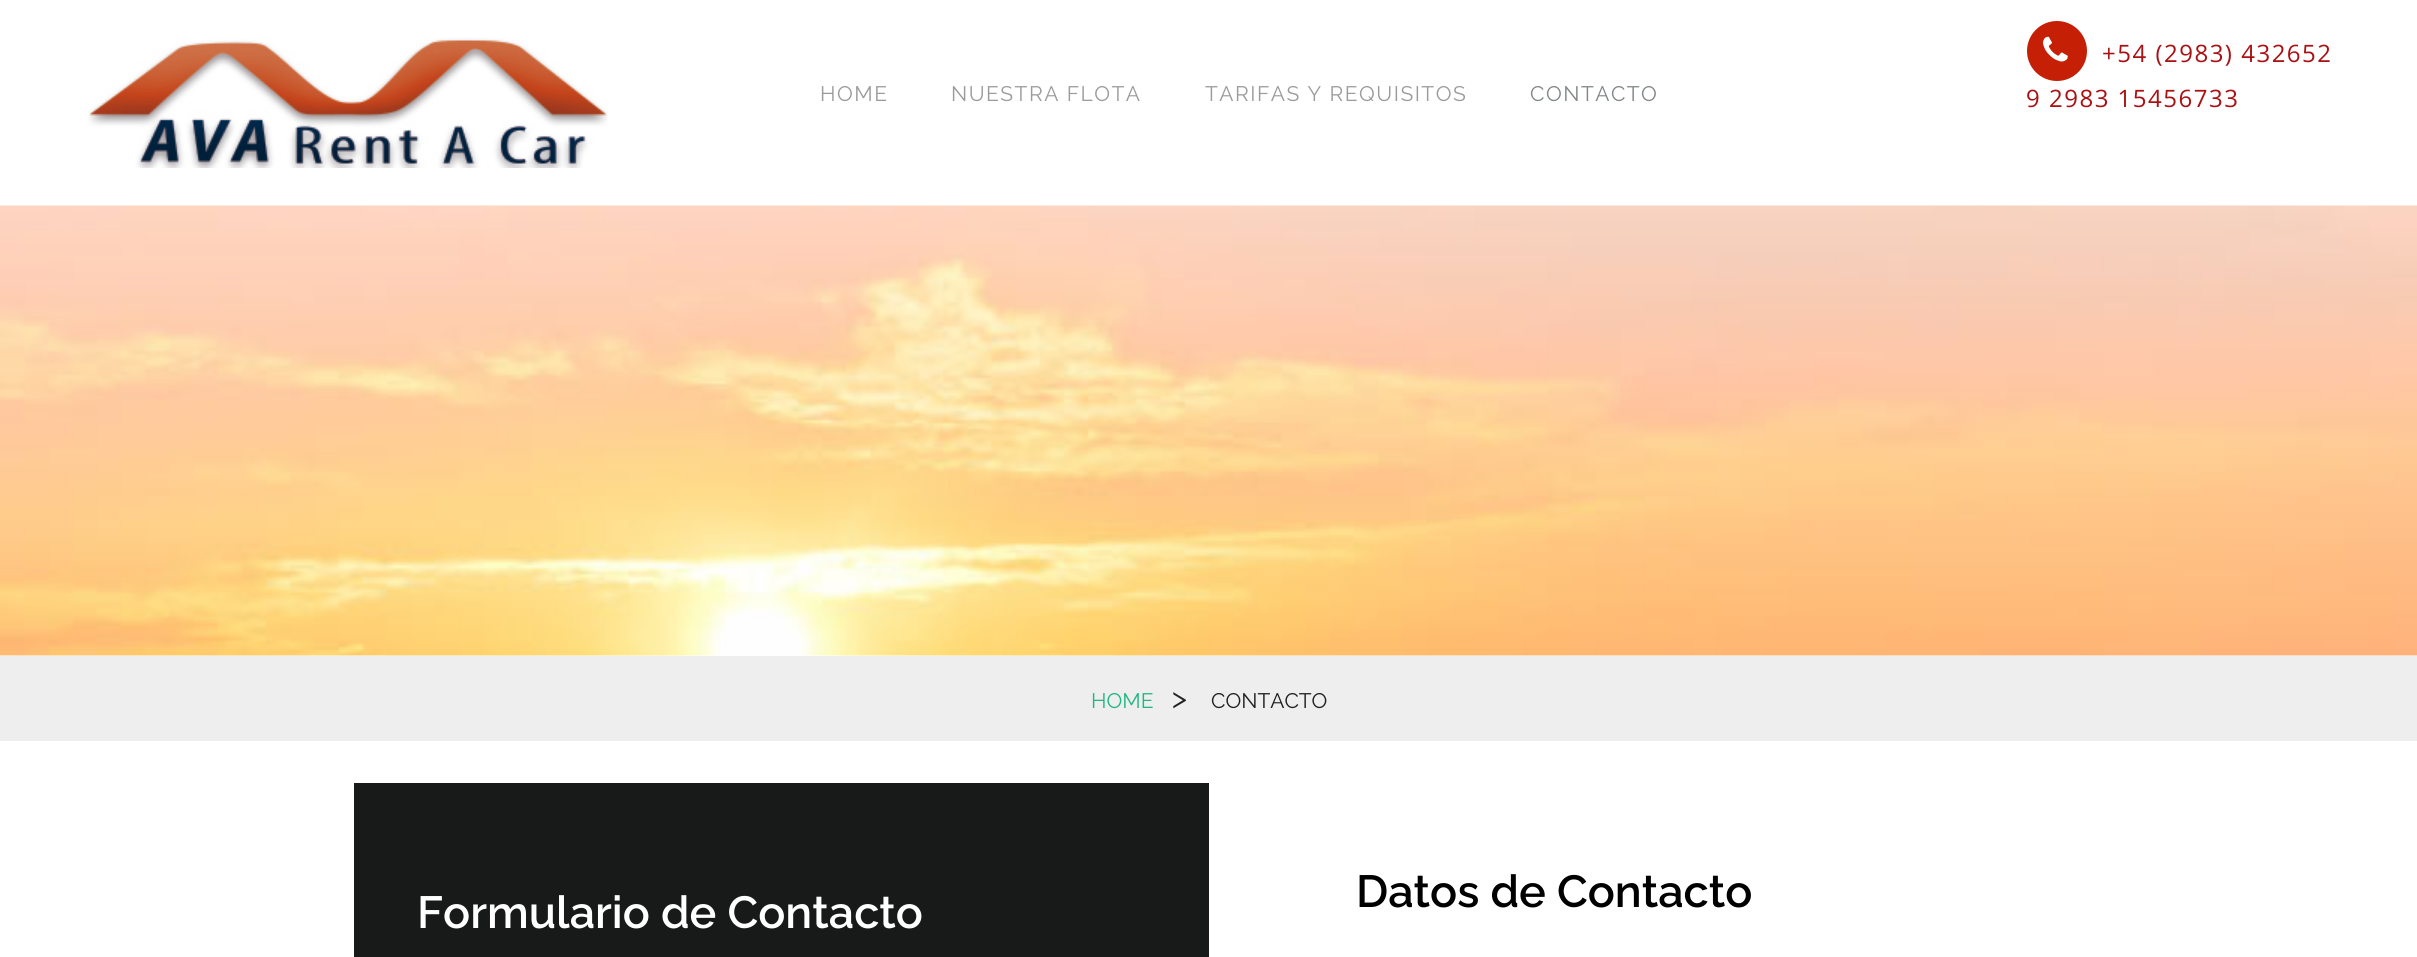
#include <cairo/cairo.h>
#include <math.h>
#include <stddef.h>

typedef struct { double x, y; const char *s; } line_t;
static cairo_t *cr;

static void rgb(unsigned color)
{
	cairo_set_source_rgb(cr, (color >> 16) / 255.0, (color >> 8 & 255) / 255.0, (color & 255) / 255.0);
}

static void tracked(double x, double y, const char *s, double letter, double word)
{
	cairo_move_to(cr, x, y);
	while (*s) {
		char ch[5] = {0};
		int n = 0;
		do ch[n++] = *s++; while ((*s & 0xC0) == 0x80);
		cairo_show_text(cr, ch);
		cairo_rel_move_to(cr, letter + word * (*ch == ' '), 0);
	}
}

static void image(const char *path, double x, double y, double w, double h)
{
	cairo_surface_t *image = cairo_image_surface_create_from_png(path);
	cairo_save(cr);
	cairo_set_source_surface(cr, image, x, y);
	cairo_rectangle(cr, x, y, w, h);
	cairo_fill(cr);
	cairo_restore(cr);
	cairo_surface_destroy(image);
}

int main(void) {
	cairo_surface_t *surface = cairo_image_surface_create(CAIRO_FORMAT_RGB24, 2417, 957);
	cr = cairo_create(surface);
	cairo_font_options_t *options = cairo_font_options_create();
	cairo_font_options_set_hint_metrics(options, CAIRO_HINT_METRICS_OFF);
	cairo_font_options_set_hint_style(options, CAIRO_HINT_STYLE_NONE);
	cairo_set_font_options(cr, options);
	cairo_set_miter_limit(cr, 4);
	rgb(0xffffff);
	cairo_paint(cr);
	image("img/1.png", 86, 37, 522, 131);
	rgb(0xc52006);
	cairo_arc(cr, 2057, 51, 30, 0, 2 * M_PI);
	cairo_fill(cr);
	image("img/2.png", 2043, 36, 25, 26);
	image("img/3.png", 0, 205, 2417, 451);
	rgb(0xeeeeee);
	cairo_rectangle(cr, 0, 656, 2417, 85);
	cairo_fill(cr);
	rgb(0x181919);
	cairo_rectangle(cr, 354, 783, 855, 174);
	cairo_fill(cr);
	cairo_select_font_face(cr, "Raleway", CAIRO_FONT_SLANT_NORMAL, CAIRO_FONT_WEIGHT_NORMAL);
	cairo_set_font_size(cr, 21);
	rgb(0x9b9b9b);
	{
		static const line_t items[] = {
			{820, 101, "HOME"},
			{951, 101, "NUESTRA FLOTA"},
			{1205, 101, "TARIFAS Y REQUISITOS"},
		};
		for (size_t i = 0; i < sizeof items / sizeof *items; i++) {
			tracked(items[i].x, items[i].y, items[i].s, 1.5, 0);
		}
	}
	rgb(0x828789);
	tracked(1530, 101, "CONTACTO", 1.5, 0);
	cairo_select_font_face(cr, "Open Sans", CAIRO_FONT_SLANT_NORMAL, CAIRO_FONT_WEIGHT_NORMAL);
	cairo_set_font_size(cr, 24);
	rgb(0xa91114);
	tracked(2102, 62, "+54 (2983) 432652", 1.5, 0);
	tracked(2026, 107, "9 2983 15456733", 1.5, 0);
	cairo_select_font_face(cr, "Raleway", CAIRO_FONT_SLANT_NORMAL, CAIRO_FONT_WEIGHT_NORMAL);
	cairo_set_font_size(cr, 21);
	rgb(0x23b684);
	cairo_move_to(cr, 1091, 708);
	cairo_show_text(cr, "HOME");
	cairo_select_font_face(cr, "Raleway", CAIRO_FONT_SLANT_ITALIC, CAIRO_FONT_WEIGHT_NORMAL);
	cairo_set_font_size(cr, 30);
	rgb(0x212121);
	cairo_move_to(cr, 1171, 708);
	cairo_show_text(cr, ">");
	cairo_select_font_face(cr, "Raleway", CAIRO_FONT_SLANT_NORMAL, CAIRO_FONT_WEIGHT_NORMAL);
	cairo_set_font_size(cr, 21);
	cairo_move_to(cr, 1211, 708);
	cairo_show_text(cr, "CONTACTO");
	cairo_select_font_face(cr, "Raleway SemiBold", CAIRO_FONT_SLANT_NORMAL, CAIRO_FONT_WEIGHT_NORMAL);
	cairo_set_font_size(cr, 45);
	rgb(0x000000);
	cairo_move_to(cr, 1356, 907);
	cairo_show_text(cr, "Datos de Contacto");
	rgb(0xffffff);
	cairo_move_to(cr, 417, 928);
	cairo_show_text(cr, "Formulario de Contacto");
	cairo_surface_write_to_png(surface, "page.png");
	cairo_font_options_destroy(options);
	cairo_destroy(cr);
	cairo_surface_destroy(surface);
	return 0;
}
